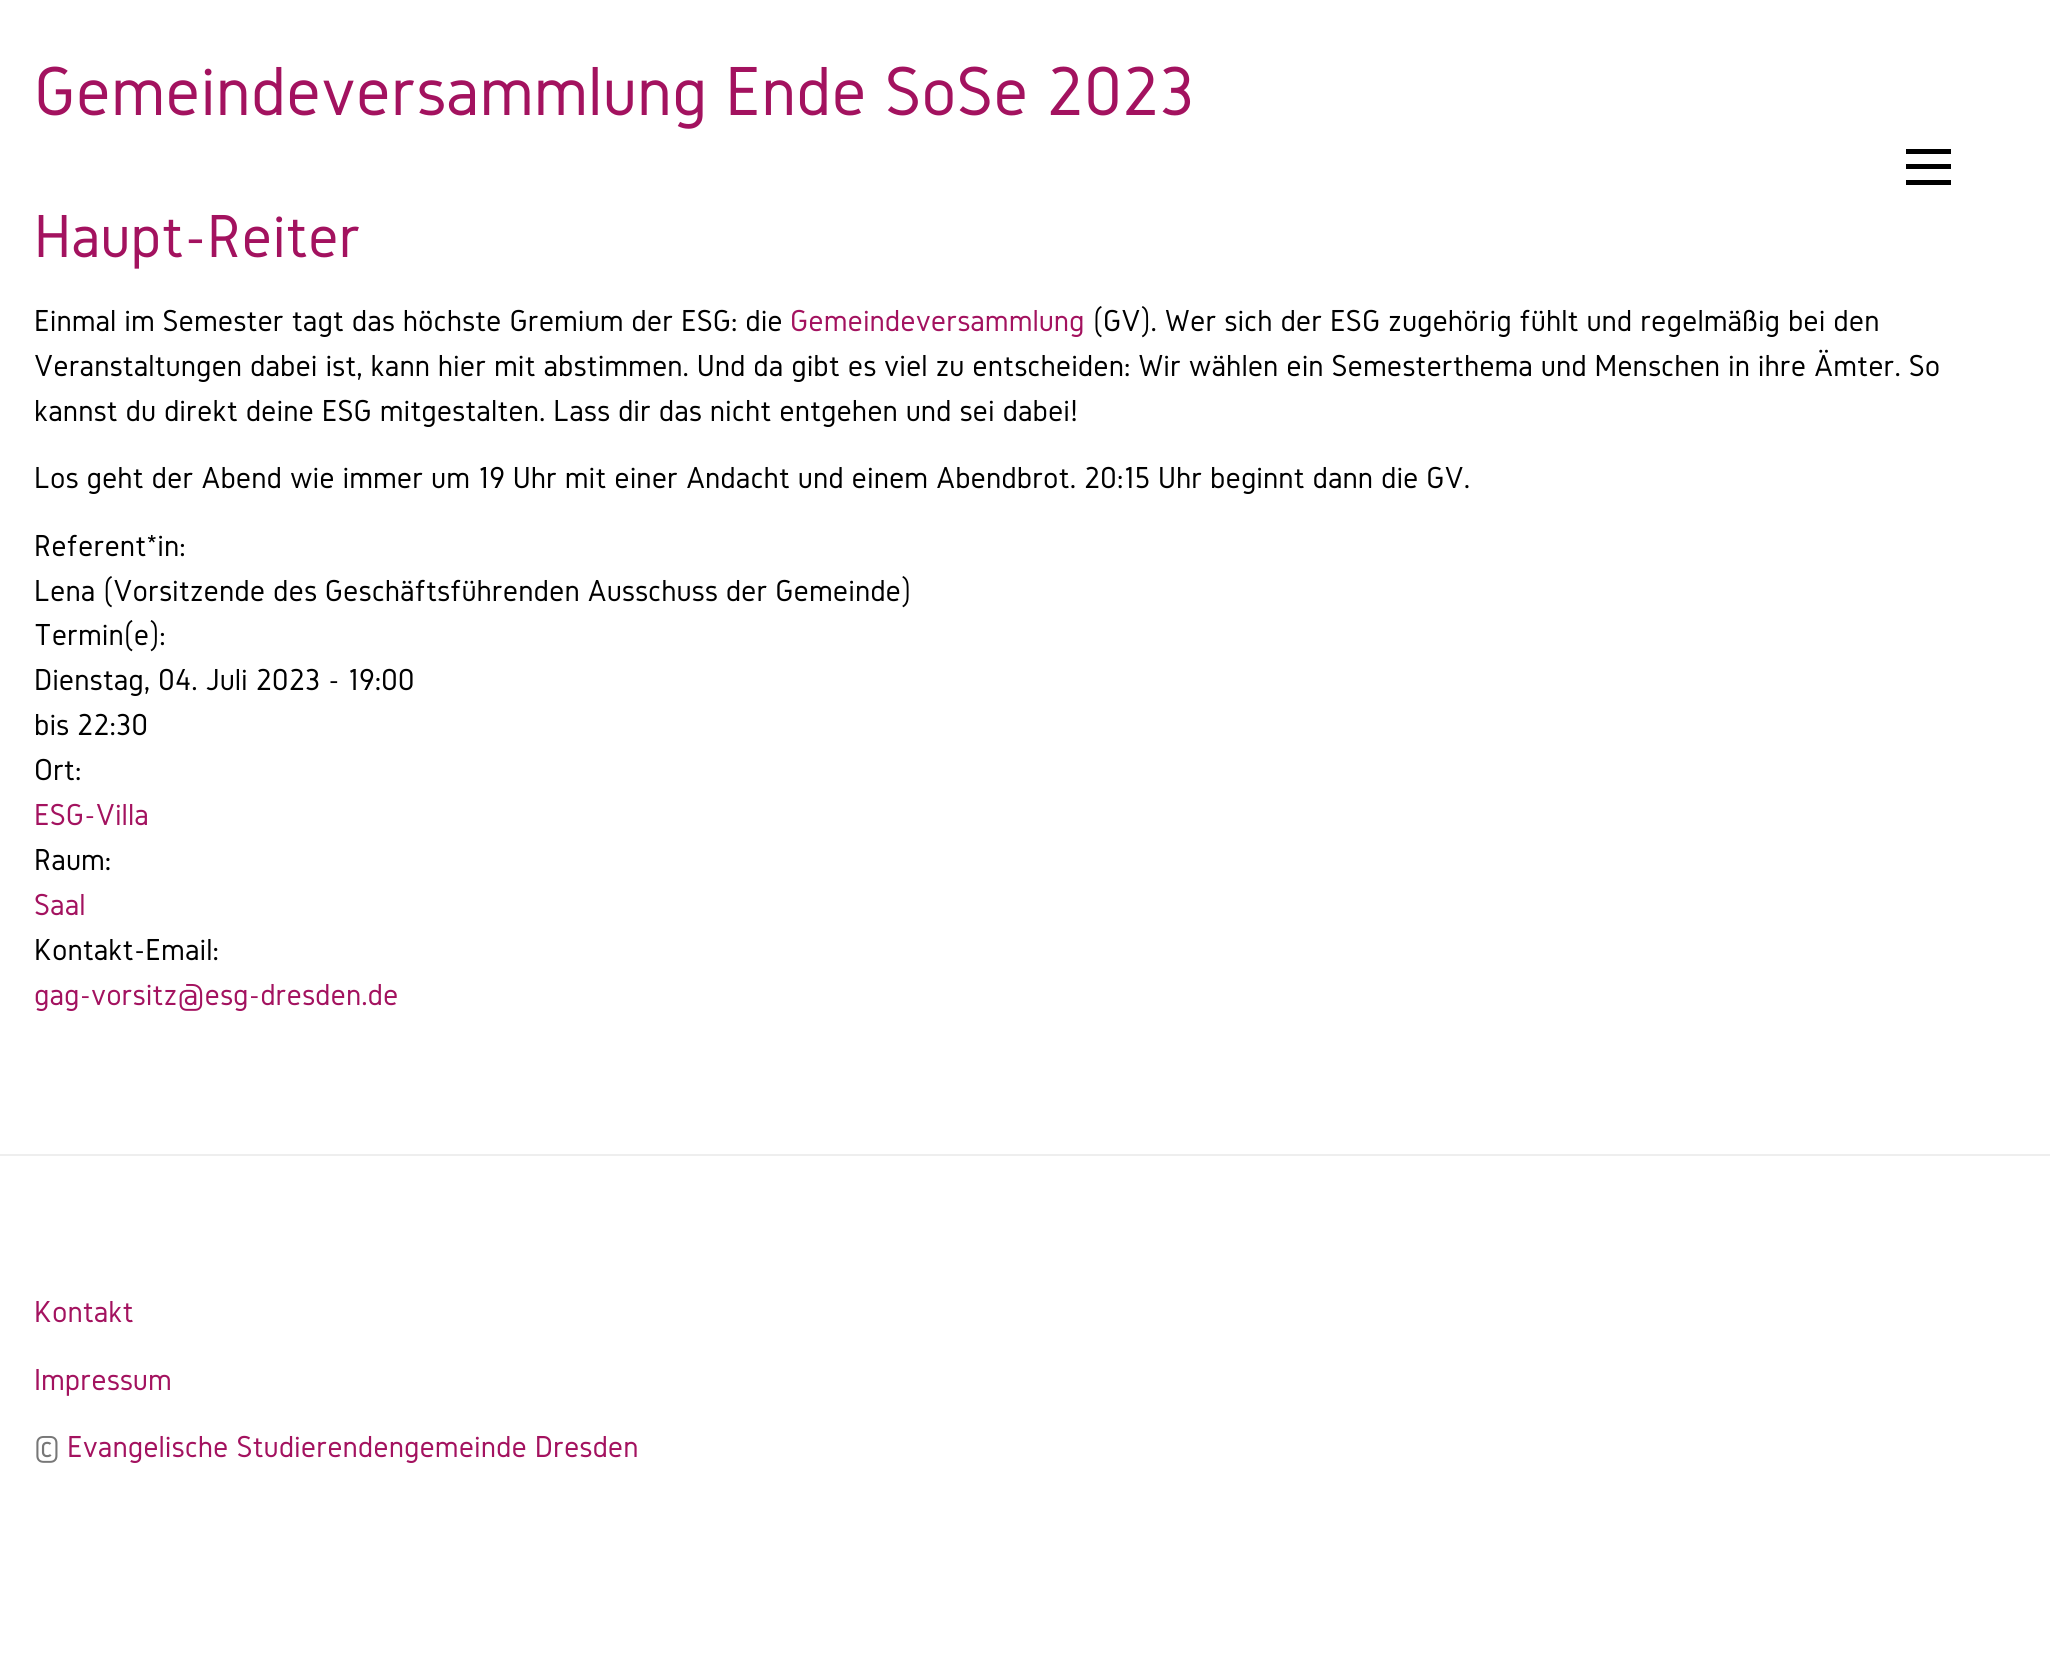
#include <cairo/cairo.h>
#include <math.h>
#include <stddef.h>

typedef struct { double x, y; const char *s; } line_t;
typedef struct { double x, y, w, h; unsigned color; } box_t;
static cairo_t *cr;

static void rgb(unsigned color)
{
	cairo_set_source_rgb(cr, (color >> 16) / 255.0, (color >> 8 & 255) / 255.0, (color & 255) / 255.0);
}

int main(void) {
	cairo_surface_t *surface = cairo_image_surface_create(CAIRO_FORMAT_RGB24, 2050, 1672);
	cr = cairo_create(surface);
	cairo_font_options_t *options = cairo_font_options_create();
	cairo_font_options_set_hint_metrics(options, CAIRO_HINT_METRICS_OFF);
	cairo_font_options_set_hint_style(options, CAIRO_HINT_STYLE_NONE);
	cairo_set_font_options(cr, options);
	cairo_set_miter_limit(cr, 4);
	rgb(0xffffff);
	cairo_paint(cr);
	{
		static const box_t items[] = {
			{1906, 164, 45, 5, 0x000000},
			{1906, 149, 45, 5, 0x000000},
			{1906, 180, 45, 5, 0x000000},
			{0, 1154, 2050, 2, 0xeeeeee},
		};
		for (size_t i = 0; i < sizeof items / sizeof *items; i++) {
			rgb(items[i].color);
			cairo_rectangle(cr, items[i].x, items[i].y, items[i].w, items[i].h);
			cairo_fill(cr);
		}
	}
	cairo_select_font_face(cr, "Gidole", CAIRO_FONT_SLANT_NORMAL, CAIRO_FONT_WEIGHT_NORMAL);
	cairo_set_font_size(cr, 72);
	rgb(0xa3125f);
	cairo_move_to(cr, 34, 115);
	cairo_show_text(cr, "Gemeindeversammlung Ende SoSe 2023");
	cairo_set_font_size(cr, 63);
	cairo_move_to(cr, 34, 257);
	cairo_show_text(cr, "Haupt-Reiter");
	cairo_set_font_size(cr, 31.5);
	rgb(0x000000);
	cairo_move_to(cr, 34, 331);
	cairo_show_text(cr, "Einmal im Semester tagt das höchste Gremium der ESG: die");
	rgb(0xa3125f);
	cairo_move_to(cr, 790, 331);
	cairo_show_text(cr, "Gemeindeversammlung");
	rgb(0x000000);
	{
		static const line_t items[] = {
			{1093, 331, "(GV). Wer sich der ESG zugehörig fühlt und regelmäßig bei den"},
			{34, 376, "Veranstaltungen dabei ist, kann hier mit abstimmen. Und da gibt es viel zu entscheiden: Wir wählen ein Semesterthema und Menschen in ihre Ämter. So"},
			{34, 421, "kannst du direkt deine ESG mitgestalten. Lass dir das nicht entgehen und sei dabei!"},
			{34, 488, "Los geht der Abend wie immer um 19 Uhr mit einer Andacht und einem Abendbrot. 20:15 Uhr beginnt dann die GV."},
			{34, 556, "Referent*in:"},
			{34, 601, "Lena (Vorsitzende des Geschäftsführenden Ausschuss der Gemeinde)"},
			{34, 645, "Termin(e):"},
			{34, 690, "Dienstag, 04. Juli 2023 - 19:00"},
			{34, 735, "bis 22:30"},
			{34, 780, "Ort:"},
		};
		for (size_t i = 0; i < sizeof items / sizeof *items; i++) {
			cairo_move_to(cr, items[i].x, items[i].y);
			cairo_show_text(cr, items[i].s);
		}
	}
	rgb(0xa3125f);
	cairo_move_to(cr, 34, 825);
	cairo_show_text(cr, "ESG-Villa");
	rgb(0x000000);
	cairo_move_to(cr, 34, 870);
	cairo_show_text(cr, "Raum:");
	rgb(0xa3125f);
	cairo_move_to(cr, 34, 915);
	cairo_show_text(cr, "Saal");
	rgb(0x000000);
	cairo_move_to(cr, 34, 960);
	cairo_show_text(cr, "Kontakt-Email:");
	rgb(0xa3125f);
	{
		static const line_t items[] = {
			{34, 1005, "gag-vorsitz@esg-dresden.de"},
			{34, 1322, "Kontakt"},
			{34, 1390, "Impressum"},
		};
		for (size_t i = 0; i < sizeof items / sizeof *items; i++) {
			cairo_move_to(cr, items[i].x, items[i].y);
			cairo_show_text(cr, items[i].s);
		}
	}
	rgb(0x777777);
	cairo_move_to(cr, 34, 1457);
	cairo_show_text(cr, "©");
	rgb(0xa3125f);
	cairo_move_to(cr, 67, 1457);
	cairo_show_text(cr, "Evangelische Studierendengemeinde Dresden");
	cairo_surface_write_to_png(surface, "page.png");
	cairo_font_options_destroy(options);
	cairo_destroy(cr);
	cairo_surface_destroy(surface);
	return 0;
}
